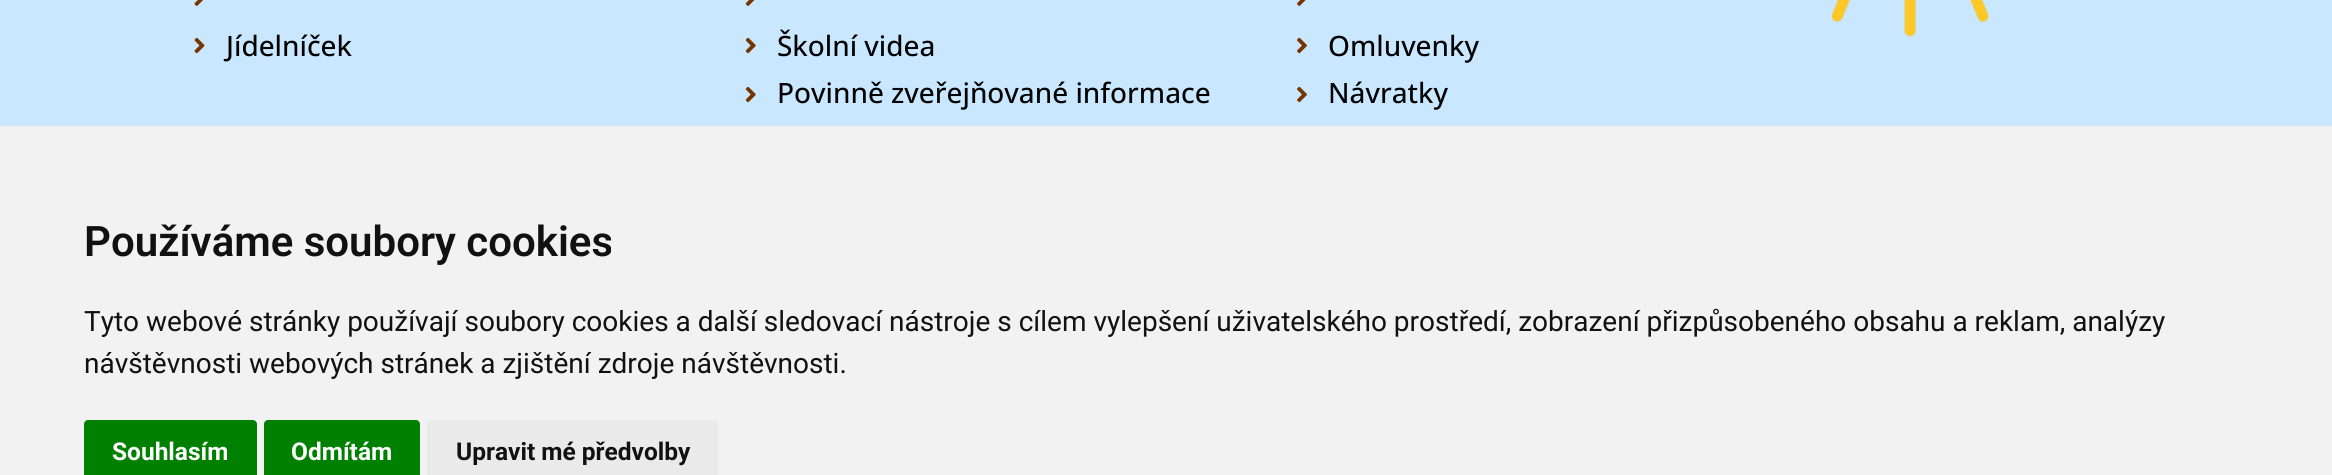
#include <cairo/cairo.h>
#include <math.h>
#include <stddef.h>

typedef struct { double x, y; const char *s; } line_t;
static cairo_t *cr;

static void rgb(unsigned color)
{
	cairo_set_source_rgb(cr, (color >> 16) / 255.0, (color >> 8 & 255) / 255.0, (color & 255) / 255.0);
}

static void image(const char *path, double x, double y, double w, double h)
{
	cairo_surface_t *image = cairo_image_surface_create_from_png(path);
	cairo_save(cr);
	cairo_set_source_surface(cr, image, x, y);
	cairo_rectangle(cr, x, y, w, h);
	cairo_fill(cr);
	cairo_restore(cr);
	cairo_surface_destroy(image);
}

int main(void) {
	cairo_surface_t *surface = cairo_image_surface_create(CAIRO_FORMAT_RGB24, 2332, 475);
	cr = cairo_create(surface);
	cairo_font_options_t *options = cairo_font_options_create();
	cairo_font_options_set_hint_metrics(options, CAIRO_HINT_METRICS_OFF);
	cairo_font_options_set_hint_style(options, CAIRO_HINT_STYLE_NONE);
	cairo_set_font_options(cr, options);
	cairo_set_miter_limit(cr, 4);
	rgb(0xc9e7ff);
	cairo_paint(cr);
	image("img/1.png", 1831, 0, 159, 37);
	image("img/2.png", 194, 0, 9, 6);
	image("img/3.png", 194, 37, 11, 17);
	image("img/4.png", 745, 0, 10, 6);
	image("img/5.png", 745, 37, 11, 17);
	image("img/5.png", 745, 86, 11, 17);
	image("img/6.png", 1297, 0, 9, 6);
	image("img/7.png", 1297, 37, 10, 17);
	image("img/7.png", 1297, 86, 10, 17);
	rgb(0xf2f2f2);
	cairo_rectangle(cr, 0, 126, 2332, 349);
	cairo_fill(cr);
	rgb(0x008000);
	cairo_new_path(cr);
	cairo_move_to(cr, 88, 420);
	cairo_line_to(cr, 253, 420);
	cairo_curve_to(cr, 255, 420, 257, 422, 257, 424);
	cairo_line_to(cr, 257, 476);
	cairo_line_to(cr, 84, 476);
	cairo_line_to(cr, 84, 424);
	cairo_curve_to(cr, 84, 422, 86, 420, 88, 420);
	cairo_close_path(cr);
	cairo_fill(cr);
	cairo_new_path(cr);
	cairo_move_to(cr, 268, 420);
	cairo_line_to(cr, 416, 420);
	cairo_curve_to(cr, 418, 420, 420, 422, 420, 424);
	cairo_line_to(cr, 420, 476);
	cairo_line_to(cr, 264, 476);
	cairo_line_to(cr, 264, 424);
	cairo_curve_to(cr, 264, 422, 266, 420, 268, 420);
	cairo_close_path(cr);
	cairo_fill(cr);
	rgb(0xeaeaea);
	cairo_new_path(cr);
	cairo_move_to(cr, 431, 420);
	cairo_line_to(cr, 714, 420);
	cairo_curve_to(cr, 716, 420, 718, 422, 718, 424);
	cairo_line_to(cr, 718, 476);
	cairo_line_to(cr, 427, 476);
	cairo_line_to(cr, 427, 424);
	cairo_curve_to(cr, 427, 422, 429, 420, 431, 420);
	cairo_close_path(cr);
	cairo_fill(cr);
	cairo_select_font_face(cr, "Open Sans Medium", CAIRO_FONT_SLANT_NORMAL, CAIRO_FONT_WEIGHT_NORMAL);
	cairo_set_font_size(cr, 28);
	rgb(0x000000);
	{
		static const line_t items[] = {
			{226, 56, "Jídelníček"},
			{777, 56, "Školní videa"},
			{777, 103, "Povinně zveřejňované informace"},
			{1328, 56, "Omluvenky"},
			{1328, 103, "Návratky"},
		};
		for (size_t i = 0; i < sizeof items / sizeof *items; i++) {
			cairo_move_to(cr, items[i].x, items[i].y);
			cairo_show_text(cr, items[i].s);
		}
	}
	cairo_select_font_face(cr, "Roboto SemiBold", CAIRO_FONT_SLANT_NORMAL, CAIRO_FONT_WEIGHT_NORMAL);
	cairo_set_font_size(cr, 42);
	rgb(0x111111);
	cairo_move_to(cr, 84, 256);
	cairo_show_text(cr, "Používáme soubory cookies");
	cairo_select_font_face(cr, "Roboto", CAIRO_FONT_SLANT_NORMAL, CAIRO_FONT_WEIGHT_NORMAL);
	cairo_set_font_size(cr, 28);
	cairo_move_to(cr, 84, 331);
	cairo_show_text(cr, "Tyto webové stránky používají soubory cookies a další sledovací nástroje s cílem vylepšení uživatelského prostředí, zobrazení přizpůsobeného obsahu a reklam, analýzy");
	cairo_move_to(cr, 84, 373);
	cairo_show_text(cr, "návštěvnosti webových stránek a zjištění zdroje návštěvnosti.");
	cairo_select_font_face(cr, "Roboto", CAIRO_FONT_SLANT_NORMAL, CAIRO_FONT_WEIGHT_BOLD);
	cairo_set_font_size(cr, 24.5);
	rgb(0xffffff);
	cairo_move_to(cr, 112, 460);
	cairo_show_text(cr, "Souhlasím");
	cairo_move_to(cr, 291, 460);
	cairo_show_text(cr, "Odmítám");
	rgb(0x111111);
	cairo_move_to(cr, 456, 460);
	cairo_show_text(cr, "Upravit mé předvolby");
	cairo_surface_write_to_png(surface, "page.png");
	cairo_font_options_destroy(options);
	cairo_destroy(cr);
	cairo_surface_destroy(surface);
	return 0;
}
